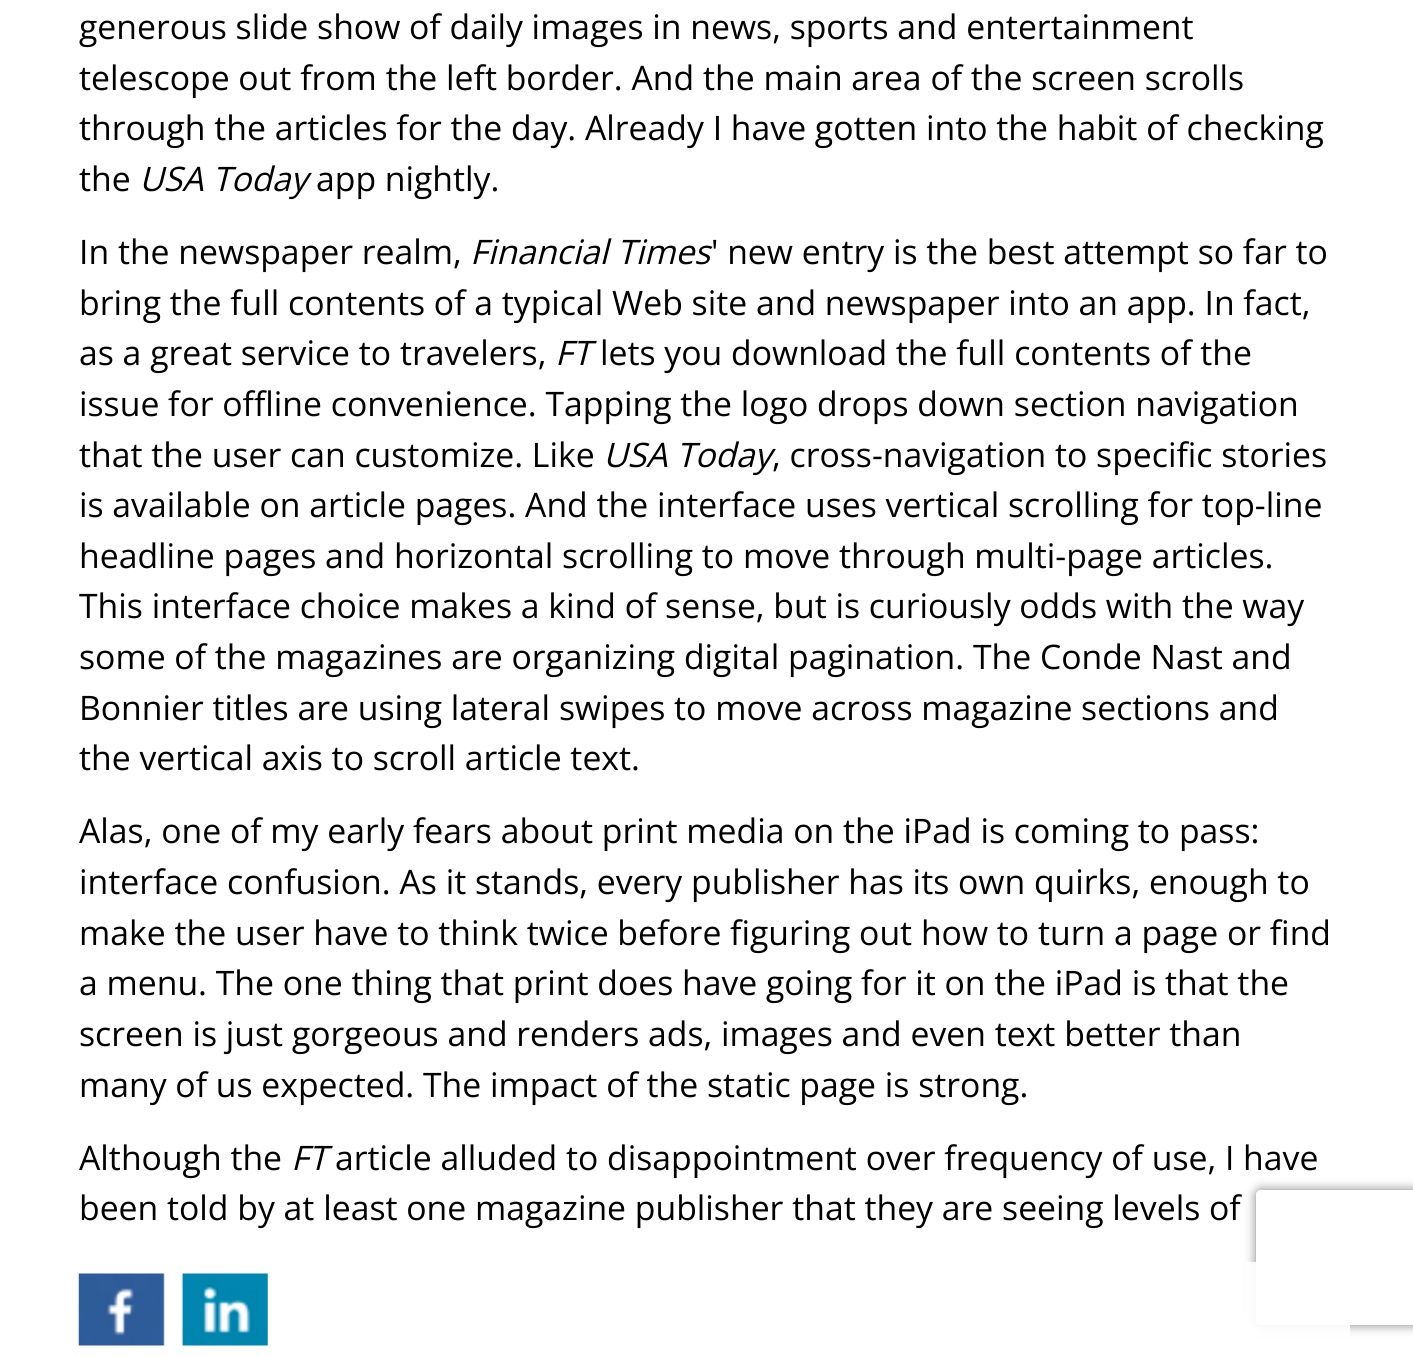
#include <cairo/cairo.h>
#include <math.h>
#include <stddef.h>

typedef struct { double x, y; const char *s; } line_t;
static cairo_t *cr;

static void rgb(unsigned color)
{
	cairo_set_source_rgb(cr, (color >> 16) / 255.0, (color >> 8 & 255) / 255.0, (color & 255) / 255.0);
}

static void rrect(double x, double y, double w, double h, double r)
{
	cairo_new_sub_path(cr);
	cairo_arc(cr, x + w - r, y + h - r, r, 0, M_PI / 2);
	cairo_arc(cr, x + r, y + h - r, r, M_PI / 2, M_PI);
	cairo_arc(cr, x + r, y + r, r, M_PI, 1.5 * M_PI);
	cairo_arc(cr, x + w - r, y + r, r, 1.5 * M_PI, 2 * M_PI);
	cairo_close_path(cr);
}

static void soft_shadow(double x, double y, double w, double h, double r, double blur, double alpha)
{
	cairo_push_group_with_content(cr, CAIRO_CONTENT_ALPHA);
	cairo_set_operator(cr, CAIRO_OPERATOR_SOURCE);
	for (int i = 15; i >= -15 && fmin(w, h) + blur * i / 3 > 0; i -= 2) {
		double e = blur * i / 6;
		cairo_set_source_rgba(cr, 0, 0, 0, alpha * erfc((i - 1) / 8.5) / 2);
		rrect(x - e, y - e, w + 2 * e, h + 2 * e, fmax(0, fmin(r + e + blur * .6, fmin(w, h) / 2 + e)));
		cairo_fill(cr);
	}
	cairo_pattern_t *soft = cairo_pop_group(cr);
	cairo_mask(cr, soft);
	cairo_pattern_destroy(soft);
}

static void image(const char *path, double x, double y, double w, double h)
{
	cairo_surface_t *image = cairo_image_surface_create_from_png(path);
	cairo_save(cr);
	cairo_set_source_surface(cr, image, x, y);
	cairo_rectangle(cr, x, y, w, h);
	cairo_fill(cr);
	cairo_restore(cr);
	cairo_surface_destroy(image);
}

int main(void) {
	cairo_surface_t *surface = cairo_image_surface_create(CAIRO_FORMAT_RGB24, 1413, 1356);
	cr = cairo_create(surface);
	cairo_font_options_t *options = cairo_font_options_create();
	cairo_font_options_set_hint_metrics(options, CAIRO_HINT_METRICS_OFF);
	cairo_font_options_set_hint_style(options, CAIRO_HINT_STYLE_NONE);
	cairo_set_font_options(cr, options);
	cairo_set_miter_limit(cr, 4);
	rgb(0xffffff);
	cairo_paint(cr);
	cairo_save(cr);
	cairo_set_fill_rule(cr, CAIRO_FILL_RULE_EVEN_ODD);
	cairo_new_path(cr);
	cairo_move_to(cr, 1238, 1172);
	cairo_line_to(cr, 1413, 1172);
	cairo_line_to(cr, 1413, 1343);
	cairo_line_to(cr, 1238, 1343);
	cairo_close_path(cr);
	cairo_move_to(cr, 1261, 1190);
	cairo_line_to(cr, 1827, 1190);
	cairo_curve_to(cr, 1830, 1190, 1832, 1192, 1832, 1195);
	cairo_line_to(cr, 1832, 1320);
	cairo_curve_to(cr, 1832, 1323, 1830, 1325, 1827, 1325);
	cairo_line_to(cr, 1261, 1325);
	cairo_curve_to(cr, 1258, 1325, 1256, 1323, 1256, 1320);
	cairo_line_to(cr, 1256, 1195);
	cairo_curve_to(cr, 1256, 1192, 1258, 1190, 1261, 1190);
	cairo_close_path(cr);
	cairo_clip(cr);
	rgb(0x808080);
	soft_shadow(1256, 1190, 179, 135, 5, 5.5, 1);
	cairo_restore(cr);
	cairo_set_source_rgba(cr, 1, 1, 1, 0.9);
	cairo_rectangle(cr, 1245, 1262, 105, 74);
	cairo_fill(cr);
	image("img/1.png", 78, 1273, 87, 73);
	image("img/2.png", 181, 1273, 87, 73);
	cairo_select_font_face(cr, "Open Sans", CAIRO_FONT_SLANT_NORMAL, CAIRO_FONT_WEIGHT_NORMAL);
	cairo_set_font_size(cr, 33.75);
	rgb(0x000000);
	{
		static const line_t items[] = {
			{79, 39, "generous slide show of daily images in news, sports and entertainment"},
			{79, 90, "telescope out from the left border. And the main area of the screen scrolls"},
			{79, 140, "through the articles for the day. Already I have gotten into the habit of checking"},
			{79, 191, "the"},
		};
		for (size_t i = 0; i < sizeof items / sizeof *items; i++) {
			cairo_move_to(cr, items[i].x, items[i].y);
			cairo_show_text(cr, items[i].s);
		}
	}
	cairo_select_font_face(cr, "Open Sans", CAIRO_FONT_SLANT_ITALIC, CAIRO_FONT_WEIGHT_NORMAL);
	cairo_move_to(cr, 139, 191);
	cairo_show_text(cr, "USA Today");
	cairo_select_font_face(cr, "Open Sans", CAIRO_FONT_SLANT_NORMAL, CAIRO_FONT_WEIGHT_NORMAL);
	cairo_move_to(cr, 316, 191);
	cairo_show_text(cr, "app nightly.");
	cairo_move_to(cr, 79, 264);
	cairo_show_text(cr, "In the newspaper realm,");
	cairo_select_font_face(cr, "Open Sans", CAIRO_FONT_SLANT_ITALIC, CAIRO_FONT_WEIGHT_NORMAL);
	cairo_move_to(cr, 470, 264);
	cairo_show_text(cr, "Financial Times");
	cairo_select_font_face(cr, "Open Sans", CAIRO_FONT_SLANT_NORMAL, CAIRO_FONT_WEIGHT_NORMAL);
	{
		static const line_t items[] = {
			{711, 264, "' new entry is the best attempt so far to"},
			{79, 315, "bring the full contents of a typical Web site and newspaper into an app. In fact,"},
			{79, 365, "as a great service to travelers,"},
		};
		for (size_t i = 0; i < sizeof items / sizeof *items; i++) {
			cairo_move_to(cr, items[i].x, items[i].y);
			cairo_show_text(cr, items[i].s);
		}
	}
	cairo_select_font_face(cr, "Open Sans", CAIRO_FONT_SLANT_ITALIC, CAIRO_FONT_WEIGHT_NORMAL);
	cairo_move_to(cr, 555, 365);
	cairo_show_text(cr, "FT");
	cairo_select_font_face(cr, "Open Sans", CAIRO_FONT_SLANT_NORMAL, CAIRO_FONT_WEIGHT_NORMAL);
	{
		static const line_t items[] = {
			{600, 365, "lets you download the full contents of the"},
			{79, 416, "issue for offline convenience. Tapping the logo drops down section navigation"},
			{79, 467, "that the user can customize. Like"},
		};
		for (size_t i = 0; i < sizeof items / sizeof *items; i++) {
			cairo_move_to(cr, items[i].x, items[i].y);
			cairo_show_text(cr, items[i].s);
		}
	}
	cairo_select_font_face(cr, "Open Sans", CAIRO_FONT_SLANT_ITALIC, CAIRO_FONT_WEIGHT_NORMAL);
	cairo_move_to(cr, 603, 467);
	cairo_show_text(cr, "USA Today");
	cairo_select_font_face(cr, "Open Sans", CAIRO_FONT_SLANT_NORMAL, CAIRO_FONT_WEIGHT_NORMAL);
	{
		static const line_t items[] = {
			{772, 467, ", cross-navigation to specific stories"},
			{79, 517, "is available on article pages. And the interface uses vertical scrolling for top-line"},
			{79, 568, "headline pages and horizontal scrolling to move through multi-page articles."},
			{79, 618, "This interface choice makes a kind of sense, but is curiously odds with the way"},
			{79, 669, "some of the magazines are organizing digital pagination. The Conde Nast and"},
			{79, 720, "Bonnier titles are using lateral swipes to move across magazine sections and"},
			{79, 770, "the vertical axis to scroll article text."},
			{79, 843, "Alas, one of my early fears about print media on the iPad is coming to pass:"},
			{79, 894, "interface confusion. As it stands, every publisher has its own quirks, enough to"},
			{79, 945, "make the user have to think twice before figuring out how to turn a page or find"},
			{79, 995, "a menu. The one thing that print does have going for it on the iPad is that the"},
			{79, 1046, "screen is just gorgeous and renders ads, images and even text better than"},
			{79, 1097, "many of us expected. The impact of the static page is strong."},
			{79, 1170, "Although the"},
		};
		for (size_t i = 0; i < sizeof items / sizeof *items; i++) {
			cairo_move_to(cr, items[i].x, items[i].y);
			cairo_show_text(cr, items[i].s);
		}
	}
	cairo_select_font_face(cr, "Open Sans", CAIRO_FONT_SLANT_ITALIC, CAIRO_FONT_WEIGHT_NORMAL);
	cairo_move_to(cr, 291, 1170);
	cairo_show_text(cr, "FT");
	cairo_select_font_face(cr, "Open Sans", CAIRO_FONT_SLANT_NORMAL, CAIRO_FONT_WEIGHT_NORMAL);
	cairo_move_to(cr, 335, 1170);
	cairo_show_text(cr, "article alluded to disappointment over frequency of use, I have");
	cairo_move_to(cr, 79, 1220);
	cairo_show_text(cr, "been told by at least one magazine publisher that they are seeing levels of");
	cairo_surface_write_to_png(surface, "page.png");
	cairo_font_options_destroy(options);
	cairo_destroy(cr);
	cairo_surface_destroy(surface);
	return 0;
}
